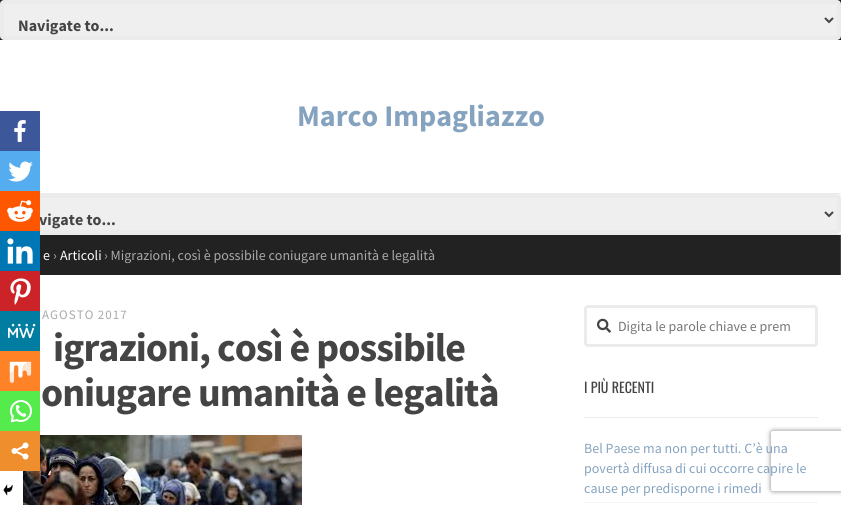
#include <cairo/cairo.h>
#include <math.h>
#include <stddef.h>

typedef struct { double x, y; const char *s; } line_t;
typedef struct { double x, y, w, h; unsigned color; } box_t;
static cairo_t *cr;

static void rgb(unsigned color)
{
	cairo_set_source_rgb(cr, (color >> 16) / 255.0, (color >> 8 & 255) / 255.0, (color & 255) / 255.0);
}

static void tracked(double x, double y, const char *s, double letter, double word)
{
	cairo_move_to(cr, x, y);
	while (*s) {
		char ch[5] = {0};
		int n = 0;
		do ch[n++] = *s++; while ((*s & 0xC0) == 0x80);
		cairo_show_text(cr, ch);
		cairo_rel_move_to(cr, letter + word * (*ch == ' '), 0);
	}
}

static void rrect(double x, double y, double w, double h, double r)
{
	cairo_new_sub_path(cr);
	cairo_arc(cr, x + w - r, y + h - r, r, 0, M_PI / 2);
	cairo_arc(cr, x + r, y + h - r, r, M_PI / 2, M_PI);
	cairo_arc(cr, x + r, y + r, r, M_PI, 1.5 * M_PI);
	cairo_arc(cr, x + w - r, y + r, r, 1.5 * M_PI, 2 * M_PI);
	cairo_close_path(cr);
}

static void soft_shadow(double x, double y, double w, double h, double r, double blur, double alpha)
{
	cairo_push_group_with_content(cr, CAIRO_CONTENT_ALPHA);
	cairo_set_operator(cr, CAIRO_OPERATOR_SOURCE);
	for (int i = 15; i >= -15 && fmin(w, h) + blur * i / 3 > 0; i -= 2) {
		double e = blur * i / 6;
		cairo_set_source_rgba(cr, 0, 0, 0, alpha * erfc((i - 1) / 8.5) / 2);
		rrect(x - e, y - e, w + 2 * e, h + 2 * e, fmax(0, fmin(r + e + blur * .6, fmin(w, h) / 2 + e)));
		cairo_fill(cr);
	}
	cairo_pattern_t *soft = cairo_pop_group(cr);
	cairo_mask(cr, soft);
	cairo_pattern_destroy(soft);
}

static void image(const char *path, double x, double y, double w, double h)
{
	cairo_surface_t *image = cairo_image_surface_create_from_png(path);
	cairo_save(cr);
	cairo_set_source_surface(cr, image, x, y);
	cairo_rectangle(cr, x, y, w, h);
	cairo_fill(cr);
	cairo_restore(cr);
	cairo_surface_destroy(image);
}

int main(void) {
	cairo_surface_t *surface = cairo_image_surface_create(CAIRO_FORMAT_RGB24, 841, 505);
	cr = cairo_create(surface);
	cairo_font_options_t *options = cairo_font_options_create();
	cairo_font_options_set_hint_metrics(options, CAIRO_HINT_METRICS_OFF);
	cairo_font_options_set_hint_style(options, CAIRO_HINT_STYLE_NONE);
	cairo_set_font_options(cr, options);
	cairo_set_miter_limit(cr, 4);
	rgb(0x222222);
	cairo_paint(cr);
	rgb(0xefefef);
	rrect(2, 2, 837, 36, 2);
	cairo_fill_preserve(cr);
	rgb(0xebebeb);
	cairo_set_line_width(cr, 4);
	cairo_stroke(cr);
	cairo_new_path(cr);
	cairo_move_to(cr, 825, 18);
	cairo_line_to(cr, 829, 22);
	cairo_line_to(cr, 833, 18);
	rgb(0x444444);
	cairo_set_line_width(cr, 2);
	cairo_stroke(cr);
	{
		static const box_t items[] = {
			{0, 40, 841, 153, 0xffffff},
			{837, 194, 4, 40, 0xffffff},
			{40, 193, 801, 1, 0xebebeb},
			{40, 234, 801, 1, 0xebebeb},
		};
		for (size_t i = 0; i < sizeof items / sizeof *items; i++) {
			rgb(items[i].color);
			cairo_rectangle(cr, items[i].x, items[i].y, items[i].w, items[i].h);
			cairo_fill(cr);
		}
	}
	rgb(0xefefef);
	rrect(4, 196, 835, 36, 2);
	cairo_fill_preserve(cr);
	rgb(0xebebeb);
	cairo_set_line_width(cr, 4);
	cairo_stroke(cr);
	cairo_new_path(cr);
	cairo_move_to(cr, 825, 212);
	cairo_line_to(cr, 829, 216);
	cairo_line_to(cr, 833, 212);
	rgb(0x444444);
	cairo_set_line_width(cr, 2);
	cairo_stroke(cr);
	{
		static const box_t items[] = {
			{840, 235, 1, 40, 0x444444},
			{0, 275, 841, 230, 0xffffff},
			{0, 111, 40, 40, 0x3c589a},
		};
		for (size_t i = 0; i < sizeof items / sizeof *items; i++) {
			rgb(items[i].color);
			cairo_rectangle(cr, items[i].x, items[i].y, items[i].w, items[i].h);
			cairo_fill(cr);
		}
	}
	image("img/1.png", 14, 120, 12, 22);
	rgb(0x55acee);
	cairo_rectangle(cr, 0, 151, 40, 40);
	cairo_fill(cr);
	image("img/2.png", 8, 161, 25, 21);
	rgb(0x0077b5);
	cairo_rectangle(cr, 0, 231, 40, 40);
	cairo_fill(cr);
	image("img/4.png", 7, 238, 26, 26);
	rgb(0xcc2329);
	cairo_rectangle(cr, 0, 271, 40, 40);
	cairo_fill(cr);
	image("img/5.png", 10, 278, 21, 27);
	rgb(0x007da1);
	cairo_rectangle(cr, 0, 311, 40, 40);
	cairo_fill(cr);
	image("img/6.png", 8, 323, 28, 16);
	rgb(0xff8226);
	cairo_rectangle(cr, 0, 351, 40, 40);
	cairo_fill(cr);
	image("img/7.png", 9, 361, 23, 22);
	rgb(0x55eb4c);
	cairo_rectangle(cr, 0, 391, 40, 40);
	cairo_fill(cr);
	image("img/8.png", 10, 400, 22, 23);
	image("img/11.png", 23, 435, 279, 70);
	rgb(0xee8e2d);
	cairo_rectangle(cr, 0, 431, 40, 40);
	cairo_fill(cr);
	image("img/9.png", 11, 442, 18, 18);
	image("img/10.png", 3, 484, 10, 12);
	rrect(585.5, 306.5, 231, 39, 2.5);
	rgb(0xebebeb);
	cairo_set_line_width(cr, 3);
	cairo_stroke(cr);
	image("img/12.png", 597, 318, 14, 15);
	cairo_rectangle(cr, 584, 417, 234, 1);
	cairo_fill(cr);
	cairo_new_path(cr);
	cairo_move_to(cr, 584, 502.5);
	cairo_line_to(cr, 818, 502.5);
	cairo_set_line_width(cr, 1);
	cairo_set_dash(cr, (double[]){1, 1}, 2, 0);
	cairo_stroke(cr);
	cairo_save(cr);
	cairo_set_fill_rule(cr, CAIRO_FILL_RULE_EVEN_ODD);
	cairo_new_path(cr);
	cairo_move_to(cr, 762, 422);
	cairo_line_to(cr, 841, 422);
	cairo_line_to(cr, 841, 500);
	cairo_line_to(cr, 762, 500);
	cairo_close_path(cr);
	cairo_move_to(cr, 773, 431);
	cairo_line_to(cr, 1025, 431);
	cairo_curve_to(cr, 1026, 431, 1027, 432, 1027, 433);
	cairo_line_to(cr, 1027, 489);
	cairo_curve_to(cr, 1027, 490, 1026, 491, 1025, 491);
	cairo_line_to(cr, 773, 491);
	cairo_curve_to(cr, 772, 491, 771, 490, 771, 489);
	cairo_line_to(cr, 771, 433);
	cairo_curve_to(cr, 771, 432, 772, 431, 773, 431);
	cairo_close_path(cr);
	cairo_clip(cr);
	rgb(0x808080);
	soft_shadow(771, 431, 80, 60, 2, 2.5, 1);
	cairo_restore(cr);
	cairo_select_font_face(cr, "Source Sans Pro", CAIRO_FONT_SLANT_NORMAL, CAIRO_FONT_WEIGHT_BOLD);
	cairo_set_font_size(cr, 16);
	rgb(0x444444);
	cairo_move_to(cr, 18, 31);
	cairo_show_text(cr, "Navigate to...");
	cairo_set_font_size(cr, 30);
	rgb(0x85a3bf);
	cairo_move_to(cr, 297, 126);
	cairo_show_text(cr, "Marco Impagliazzo");
	cairo_set_font_size(cr, 16);
	rgb(0x444444);
	cairo_move_to(cr, 39, 225);
	cairo_show_text(cr, "vigate to...");
	cairo_select_font_face(cr, "Source Sans Pro", CAIRO_FONT_SLANT_NORMAL, CAIRO_FONT_WEIGHT_NORMAL);
	cairo_set_font_size(cr, 14);
	rgb(0xffffff);
	cairo_move_to(cr, 43, 260);
	cairo_show_text(cr, "e");
	rgb(0xaaaaaa);
	cairo_move_to(cr, 53, 260);
	cairo_show_text(cr, "›");
	rgb(0xffffff);
	cairo_move_to(cr, 60, 260);
	cairo_show_text(cr, "Articoli");
	rgb(0xaaaaaa);
	cairo_move_to(cr, 104, 260);
	cairo_show_text(cr, "› Migrazioni, così è possibile coniugare umanità e legalità");
	rgb(0xff5700);
	cairo_rectangle(cr, 0, 191, 40, 40);
	cairo_fill(cr);
	image("img/3.png", 7, 200, 26, 22);
	cairo_set_font_size(cr, 13);
	rgb(0xaaaaaa);
	tracked(42, 319, "AGOSTO 2017", 1, 0);
	cairo_select_font_face(cr, "Source Sans Pro", CAIRO_FONT_SLANT_NORMAL, CAIRO_FONT_WEIGHT_BOLD);
	cairo_set_font_size(cr, 40);
	rgb(0x444444);
	tracked(53, 361, "igrazioni, così è possibile", -1, 0);
	tracked(41, 406, "oniugare umanità e legalità", -1, 0);
	cairo_select_font_face(cr, "Source Sans Pro", CAIRO_FONT_SLANT_NORMAL, CAIRO_FONT_WEIGHT_NORMAL);
	cairo_set_font_size(cr, 14);
	rgb(0x757575);
	cairo_move_to(cr, 618, 331);
	cairo_show_text(cr, "Digita le parole chiave e prem");
	cairo_select_font_face(cr, "Oswald", CAIRO_FONT_SLANT_NORMAL, CAIRO_FONT_WEIGHT_NORMAL);
	rgb(0x444444);
	cairo_move_to(cr, 584, 393);
	cairo_show_text(cr, "I PIÙ RECENTI");
	cairo_select_font_face(cr, "Source Sans Pro", CAIRO_FONT_SLANT_NORMAL, CAIRO_FONT_WEIGHT_NORMAL);
	rgb(0x85a3bf);
	{
		static const line_t items[] = {
			{584, 453, "Bel Paese ma non per tutti. C’è una"},
			{584, 473, "povertà diffusa di cui occorre capire le"},
			{584, 493, "cause per predisporne i rimedi"},
		};
		for (size_t i = 0; i < sizeof items / sizeof *items; i++) {
			cairo_move_to(cr, items[i].x, items[i].y);
			cairo_show_text(cr, items[i].s);
		}
	}
	cairo_surface_write_to_png(surface, "page.png");
	cairo_font_options_destroy(options);
	cairo_destroy(cr);
	cairo_surface_destroy(surface);
	return 0;
}
